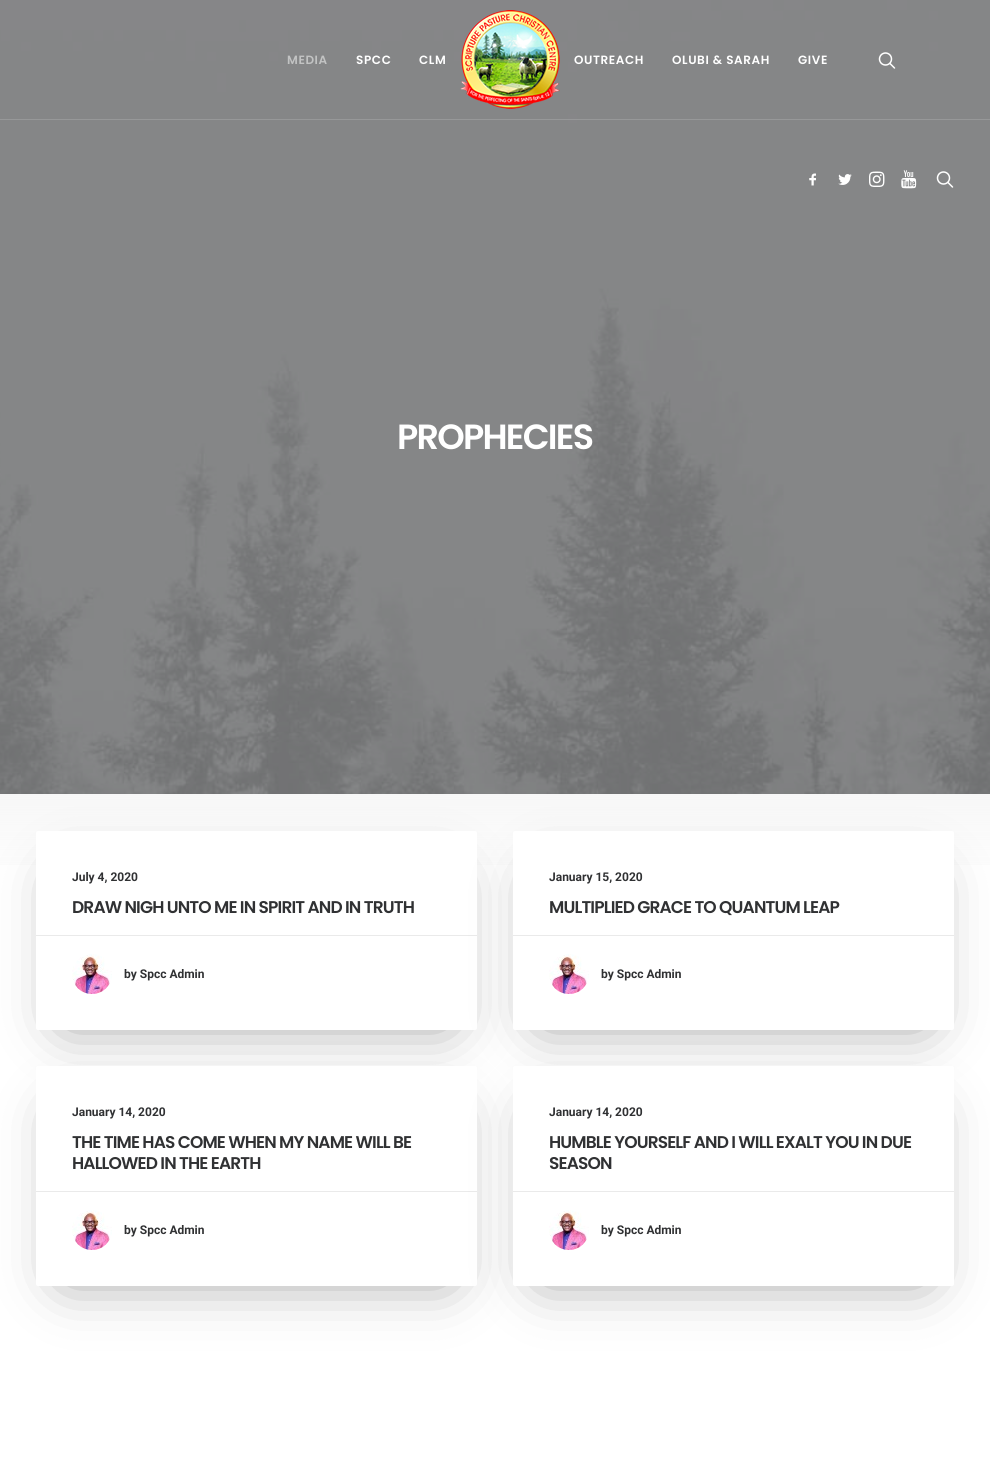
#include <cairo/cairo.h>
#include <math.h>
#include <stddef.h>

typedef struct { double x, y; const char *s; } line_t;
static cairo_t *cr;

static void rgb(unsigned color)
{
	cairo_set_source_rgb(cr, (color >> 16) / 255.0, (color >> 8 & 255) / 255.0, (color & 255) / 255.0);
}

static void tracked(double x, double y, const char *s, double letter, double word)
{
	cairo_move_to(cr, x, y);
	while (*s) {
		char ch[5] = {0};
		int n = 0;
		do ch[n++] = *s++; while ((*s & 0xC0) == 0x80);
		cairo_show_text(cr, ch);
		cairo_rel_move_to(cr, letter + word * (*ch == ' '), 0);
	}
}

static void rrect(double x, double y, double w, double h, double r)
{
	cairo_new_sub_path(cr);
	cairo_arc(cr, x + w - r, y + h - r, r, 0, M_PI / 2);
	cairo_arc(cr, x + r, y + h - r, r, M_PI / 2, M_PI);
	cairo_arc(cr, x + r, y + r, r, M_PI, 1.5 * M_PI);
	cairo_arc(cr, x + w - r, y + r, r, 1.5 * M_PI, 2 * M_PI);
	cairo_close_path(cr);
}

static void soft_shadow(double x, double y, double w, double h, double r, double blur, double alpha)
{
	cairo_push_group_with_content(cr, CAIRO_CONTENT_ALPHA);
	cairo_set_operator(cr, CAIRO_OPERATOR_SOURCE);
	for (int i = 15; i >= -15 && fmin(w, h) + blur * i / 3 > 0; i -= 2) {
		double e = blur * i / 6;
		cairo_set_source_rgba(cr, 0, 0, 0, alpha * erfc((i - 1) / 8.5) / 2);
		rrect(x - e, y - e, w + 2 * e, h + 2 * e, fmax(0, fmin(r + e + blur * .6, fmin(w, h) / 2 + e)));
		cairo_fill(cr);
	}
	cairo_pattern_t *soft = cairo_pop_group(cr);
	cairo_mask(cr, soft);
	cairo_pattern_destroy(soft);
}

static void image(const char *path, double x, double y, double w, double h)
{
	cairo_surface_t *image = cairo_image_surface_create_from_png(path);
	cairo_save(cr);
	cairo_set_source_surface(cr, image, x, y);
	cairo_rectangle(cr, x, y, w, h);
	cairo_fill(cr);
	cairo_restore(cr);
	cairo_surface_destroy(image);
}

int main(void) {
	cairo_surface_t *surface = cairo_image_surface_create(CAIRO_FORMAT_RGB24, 990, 1474);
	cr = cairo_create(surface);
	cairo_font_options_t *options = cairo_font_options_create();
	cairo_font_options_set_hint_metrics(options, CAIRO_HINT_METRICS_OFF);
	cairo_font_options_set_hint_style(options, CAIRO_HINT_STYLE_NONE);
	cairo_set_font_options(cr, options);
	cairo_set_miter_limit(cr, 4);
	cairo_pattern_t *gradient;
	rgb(0xffffff);
	cairo_paint(cr);
	image("img/7.png", 0, 0, 990, 794);
	rgb(0x979899);
	cairo_rectangle(cr, 0, 119, 990, 1);
	cairo_fill(cr);
	image("img/1.png", 460, 10, 100, 99);
	image("img/2.png", 878, 52, 18, 17);
	image("img/3.png", 809, 173, 7, 13);
	image("img/4.png", 838, 174, 14, 11);
	image("img/5.png", 869, 171, 16, 16);
	image("img/6.png", 901, 170, 16, 19);
	image("img/2.png", 936, 171, 18, 17);
	gradient = cairo_pattern_create_linear(495, 892, 495, 794);
	cairo_pattern_add_color_stop_rgba(gradient, 0, 0.969, 0.969, 0.969, 0);
	cairo_pattern_add_color_stop_rgba(gradient, 1, 0.969, 0.969, 0.969, 1);
	cairo_set_source(cr, gradient);
	cairo_pattern_destroy(gradient);
	cairo_rectangle(cr, 0, 794, 990, 71);
	cairo_fill(cr);
	rgb(0x000000);
	soft_shadow(66, 881, 381, 139, 0, 30, 0.45);
	rgb(0xffffff);
	rrect(36, 831, 441, 199, 2);
	cairo_fill(cr);
	rgb(0xeaeaea);
	cairo_rectangle(cr, 36, 935, 441, 1);
	cairo_fill(cr);
	image("img/8.png", 72, 954, 40, 40);
	rgb(0x000000);
	soft_shadow(543, 881, 381, 139, 0, 30, 0.45);
	rgb(0xffffff);
	rrect(513, 831, 441, 199, 2);
	cairo_fill(cr);
	rgb(0xeaeaea);
	cairo_rectangle(cr, 513, 935, 441, 1);
	cairo_fill(cr);
	image("img/8.png", 549, 954, 40, 40);
	rgb(0x000000);
	soft_shadow(66, 1116, 381, 160, 0, 30, 0.45);
	rgb(0xffffff);
	rrect(36, 1066, 441, 220, 2);
	cairo_fill(cr);
	rgb(0xeaeaea);
	cairo_rectangle(cr, 36, 1191, 441, 1);
	cairo_fill(cr);
	image("img/9.png", 72, 1210, 40, 40);
	rgb(0x000000);
	soft_shadow(543, 1116, 381, 160, 0, 30, 0.45);
	rgb(0xffffff);
	rrect(513, 1066, 441, 220, 2);
	cairo_fill(cr);
	rgb(0xeaeaea);
	cairo_rectangle(cr, 513, 1191, 441, 1);
	cairo_fill(cr);
	image("img/9.png", 549, 1210, 40, 40);
	cairo_select_font_face(cr, "Poppins SemiBold", CAIRO_FONT_SLANT_NORMAL, CAIRO_FONT_WEIGHT_NORMAL);
	cairo_set_font_size(cr, 12);
	rgb(0xc2c3c3);
	tracked(287, 64, "MEDIA", 0.6, 0);
	rgb(0xffffff);
	{
		static const line_t items[] = {
			{356, 64, "SPCC"},
			{419, 64, "CLM"},
			{574, 64, "OUTREACH"},
			{672, 64, "OLUBI & SARAH"},
			{798, 64, "GIVE"},
		};
		for (size_t i = 0; i < sizeof items / sizeof *items; i++) {
			tracked(items[i].x, items[i].y, items[i].s, 0.6, 0);
		}
	}
	cairo_set_font_size(cr, 35);
	tracked(397, 449, "PROPHECIES", -1.75, 0);
	cairo_select_font_face(cr, "Roboto", CAIRO_FONT_SLANT_NORMAL, CAIRO_FONT_WEIGHT_BOLD);
	cairo_set_font_size(cr, 12);
	rgb(0x303133);
	cairo_move_to(cr, 72, 881);
	cairo_show_text(cr, "July 4, 2020");
	cairo_select_font_face(cr, "Poppins SemiBold", CAIRO_FONT_SLANT_NORMAL, CAIRO_FONT_WEIGHT_NORMAL);
	cairo_set_font_size(cr, 17);
	tracked(72, 913, "DRAW NIGH UNTO ME IN SPIRIT AND IN TRUTH", -0.85, 0);
	cairo_select_font_face(cr, "Roboto", CAIRO_FONT_SLANT_NORMAL, CAIRO_FONT_WEIGHT_BOLD);
	cairo_set_font_size(cr, 12);
	cairo_move_to(cr, 124, 978);
	cairo_show_text(cr, "by Spcc Admin");
	cairo_move_to(cr, 549, 881);
	cairo_show_text(cr, "January 15, 2020");
	cairo_select_font_face(cr, "Poppins SemiBold", CAIRO_FONT_SLANT_NORMAL, CAIRO_FONT_WEIGHT_NORMAL);
	cairo_set_font_size(cr, 17);
	tracked(549, 913, "MULTIPLIED GRACE TO QUANTUM LEAP", -0.85, 0);
	cairo_select_font_face(cr, "Roboto", CAIRO_FONT_SLANT_NORMAL, CAIRO_FONT_WEIGHT_BOLD);
	cairo_set_font_size(cr, 12);
	cairo_move_to(cr, 601, 978);
	cairo_show_text(cr, "by Spcc Admin");
	cairo_move_to(cr, 72, 1116);
	cairo_show_text(cr, "January 14, 2020");
	cairo_select_font_face(cr, "Poppins SemiBold", CAIRO_FONT_SLANT_NORMAL, CAIRO_FONT_WEIGHT_NORMAL);
	cairo_set_font_size(cr, 17);
	tracked(72, 1148, "THE TIME HAS COME WHEN MY NAME WILL BE", -0.85, 0);
	tracked(72, 1169, "HALLOWED IN THE EARTH", -0.85, 0);
	cairo_select_font_face(cr, "Roboto", CAIRO_FONT_SLANT_NORMAL, CAIRO_FONT_WEIGHT_BOLD);
	cairo_set_font_size(cr, 12);
	cairo_move_to(cr, 124, 1234);
	cairo_show_text(cr, "by Spcc Admin");
	cairo_move_to(cr, 549, 1116);
	cairo_show_text(cr, "January 14, 2020");
	cairo_select_font_face(cr, "Poppins SemiBold", CAIRO_FONT_SLANT_NORMAL, CAIRO_FONT_WEIGHT_NORMAL);
	cairo_set_font_size(cr, 17);
	tracked(549, 1148, "HUMBLE YOURSELF AND I WILL EXALT YOU IN DUE", -0.85, 0);
	tracked(549, 1169, "SEASON", -0.85, 0);
	cairo_select_font_face(cr, "Roboto", CAIRO_FONT_SLANT_NORMAL, CAIRO_FONT_WEIGHT_BOLD);
	cairo_set_font_size(cr, 12);
	cairo_move_to(cr, 601, 1234);
	cairo_show_text(cr, "by Spcc Admin");
	cairo_surface_write_to_png(surface, "page.png");
	cairo_font_options_destroy(options);
	cairo_destroy(cr);
	cairo_surface_destroy(surface);
	return 0;
}
